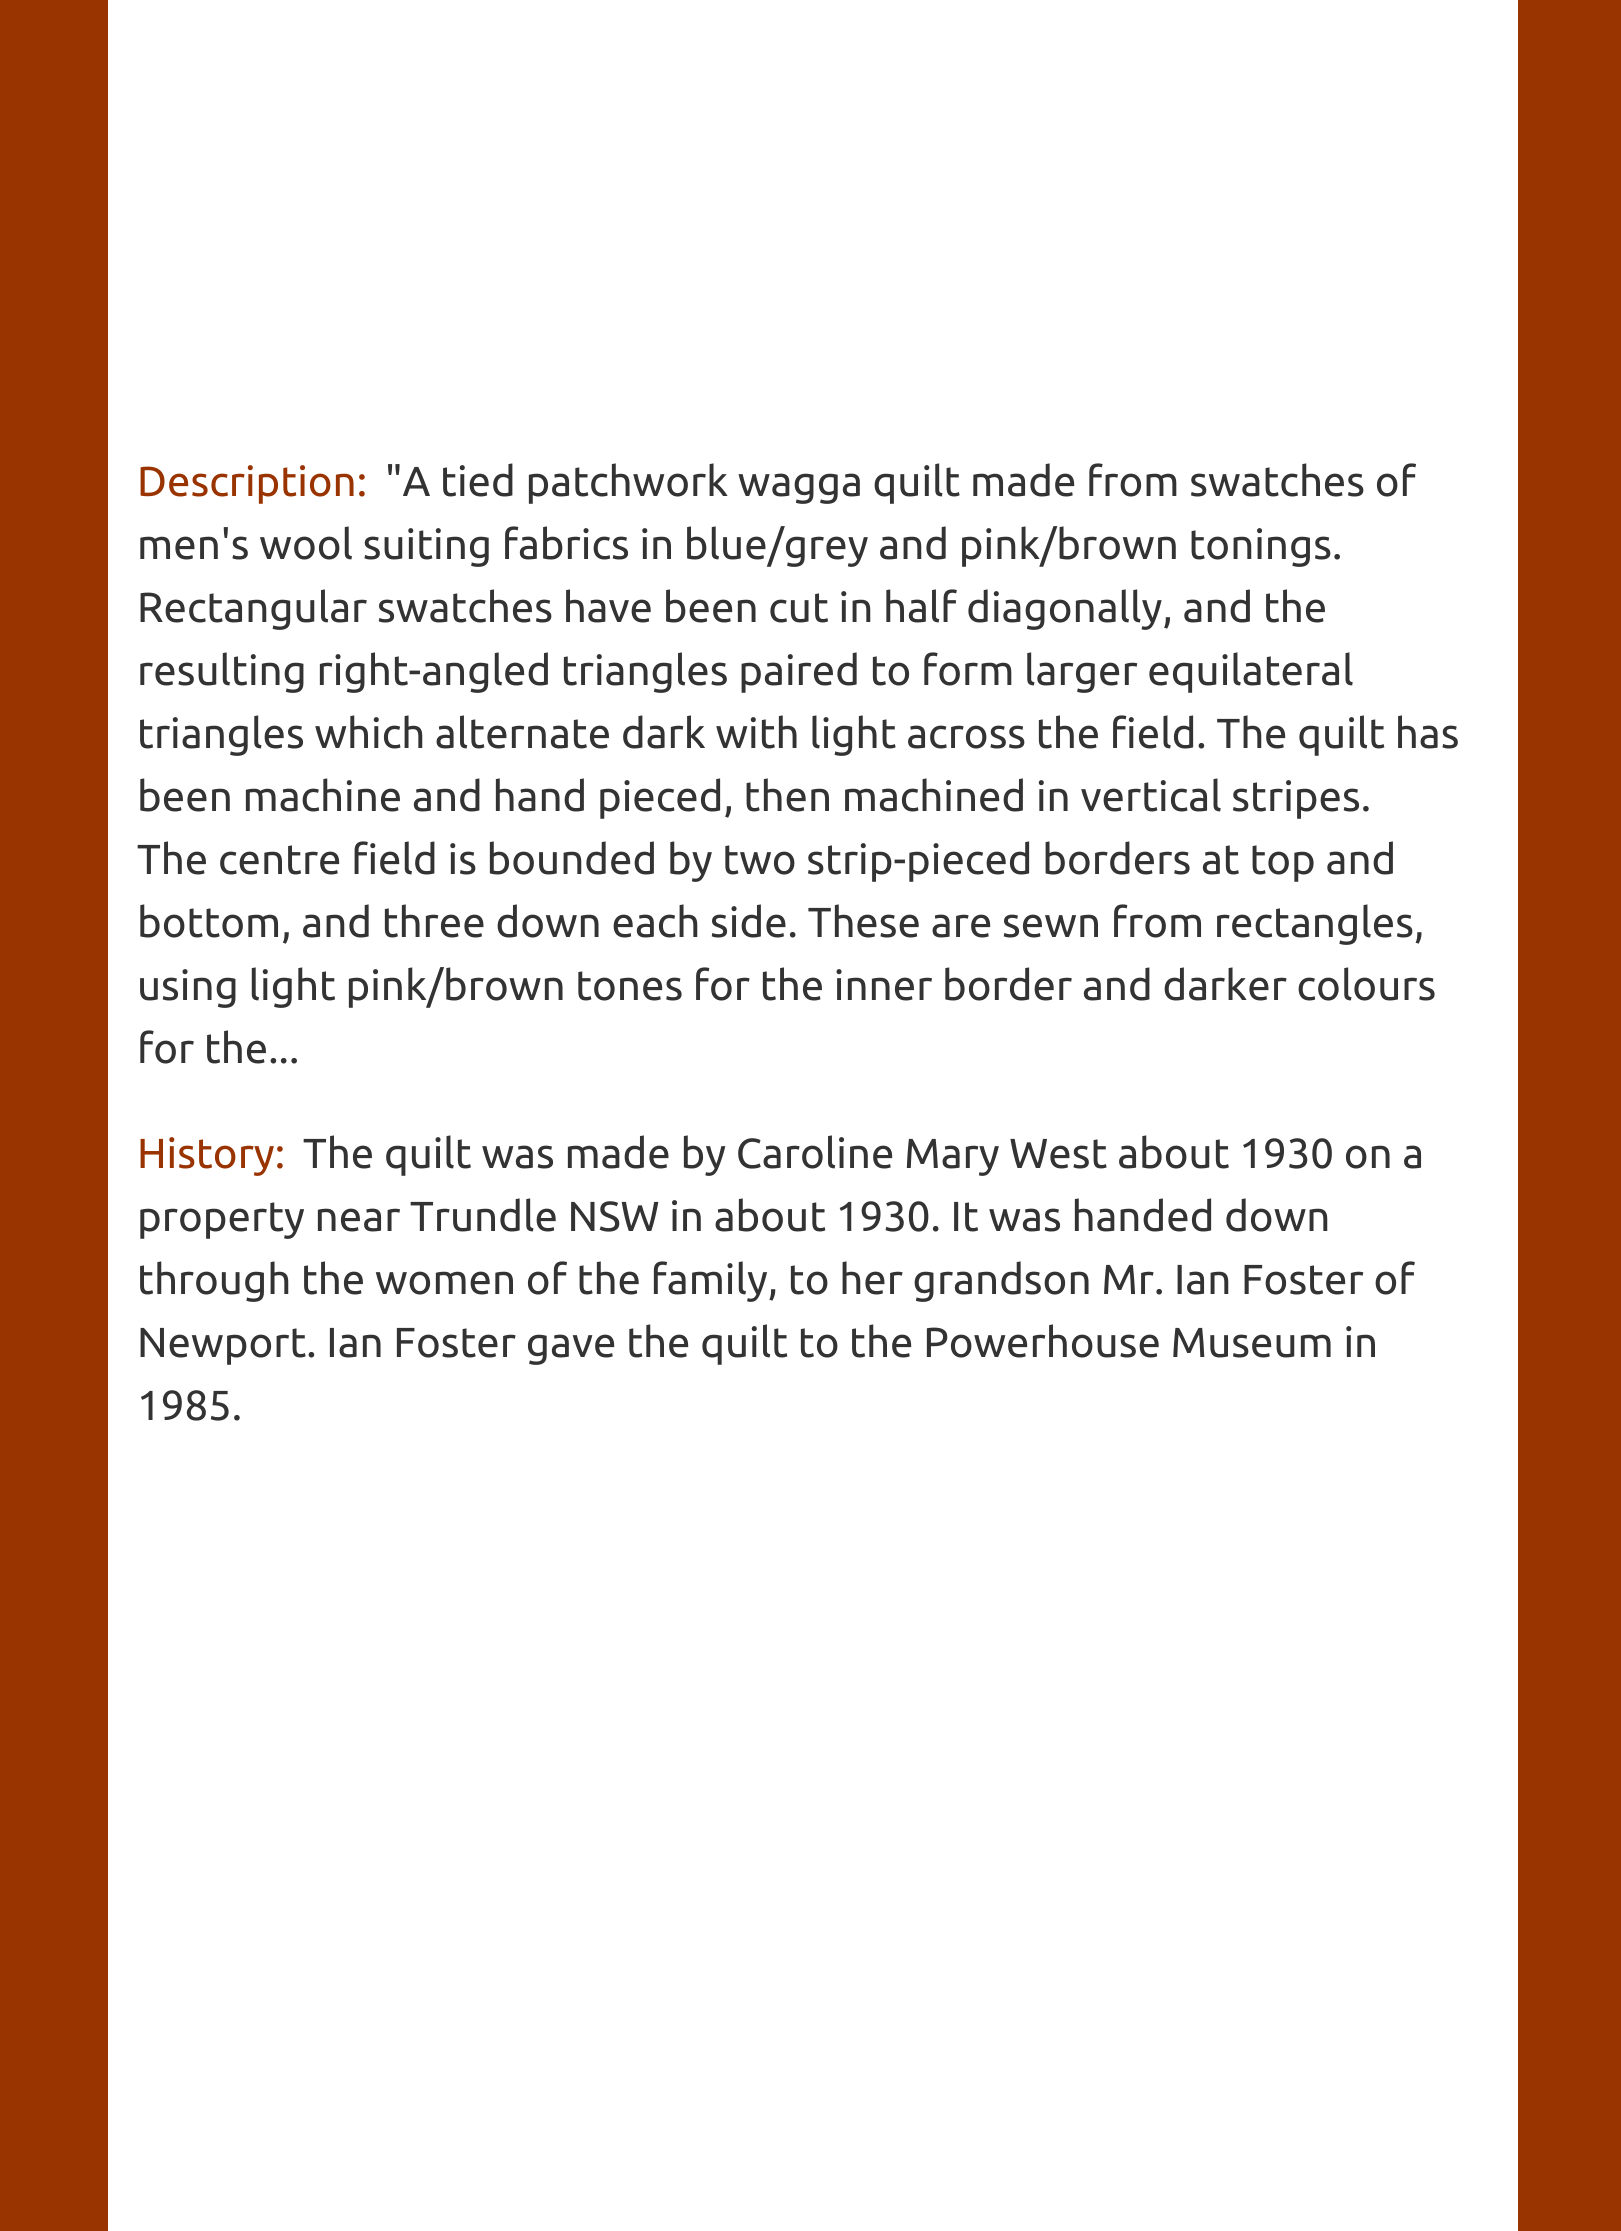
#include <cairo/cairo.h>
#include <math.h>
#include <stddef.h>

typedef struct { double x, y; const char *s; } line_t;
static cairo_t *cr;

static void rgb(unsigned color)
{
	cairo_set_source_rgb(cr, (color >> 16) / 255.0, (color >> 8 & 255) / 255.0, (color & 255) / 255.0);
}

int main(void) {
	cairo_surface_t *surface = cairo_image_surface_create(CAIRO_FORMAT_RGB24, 1621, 2231);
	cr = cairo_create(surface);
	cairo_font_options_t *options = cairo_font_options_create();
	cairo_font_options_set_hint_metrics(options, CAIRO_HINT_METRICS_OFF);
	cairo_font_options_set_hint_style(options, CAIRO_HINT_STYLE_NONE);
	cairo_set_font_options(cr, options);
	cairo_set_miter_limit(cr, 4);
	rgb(0x993300);
	cairo_paint(cr);
	rgb(0xffffff);
	cairo_rectangle(cr, 108, 0, 1410, 2231);
	cairo_fill(cr);
	cairo_select_font_face(cr, "Ubuntu", CAIRO_FONT_SLANT_NORMAL, CAIRO_FONT_WEIGHT_NORMAL);
	cairo_set_font_size(cr, 42);
	rgb(0x333333);
	{
		static const line_t items[] = {
			{385, 496, "\"A tied patchwork wagga quilt made from swatches of"},
			{137, 559, "men's wool suiting fabrics in blue/grey and pink/brown tonings."},
			{137, 622, "Rectangular swatches have been cut in half diagonally, and the"},
			{137, 685, "resulting right-angled triangles paired to form larger equilateral"},
			{137, 748, "triangles which alternate dark with light across the field. The quilt has"},
			{137, 811, "been machine and hand pieced, then machined in vertical stripes."},
			{137, 874, "The centre field is bounded by two strip-pieced borders at top and"},
			{137, 937, "bottom, and three down each side. These are sewn from rectangles,"},
			{137, 1000, "using light pink/brown tones for the inner border and darker colours"},
			{137, 1063, "for the..."},
		};
		for (size_t i = 0; i < sizeof items / sizeof *items; i++) {
			cairo_move_to(cr, items[i].x, items[i].y);
			cairo_show_text(cr, items[i].s);
		}
	}
	rgb(0x993300);
	cairo_move_to(cr, 137, 496);
	cairo_show_text(cr, "Description:");
	rgb(0x333333);
	{
		static const line_t items[] = {
			{303, 1168, "The quilt was made by Caroline Mary West about 1930 on a"},
			{137, 1231, "property near Trundle NSW in about 1930. It was handed down"},
			{137, 1294, "through the women of the family, to her grandson Mr. Ian Foster of"},
			{137, 1357, "Newport. Ian Foster gave the quilt to the Powerhouse Museum in"},
			{137, 1420, "1985."},
		};
		for (size_t i = 0; i < sizeof items / sizeof *items; i++) {
			cairo_move_to(cr, items[i].x, items[i].y);
			cairo_show_text(cr, items[i].s);
		}
	}
	rgb(0x993300);
	cairo_move_to(cr, 137, 1168);
	cairo_show_text(cr, "History:");
	cairo_surface_write_to_png(surface, "page.png");
	cairo_font_options_destroy(options);
	cairo_destroy(cr);
	cairo_surface_destroy(surface);
	return 0;
}
